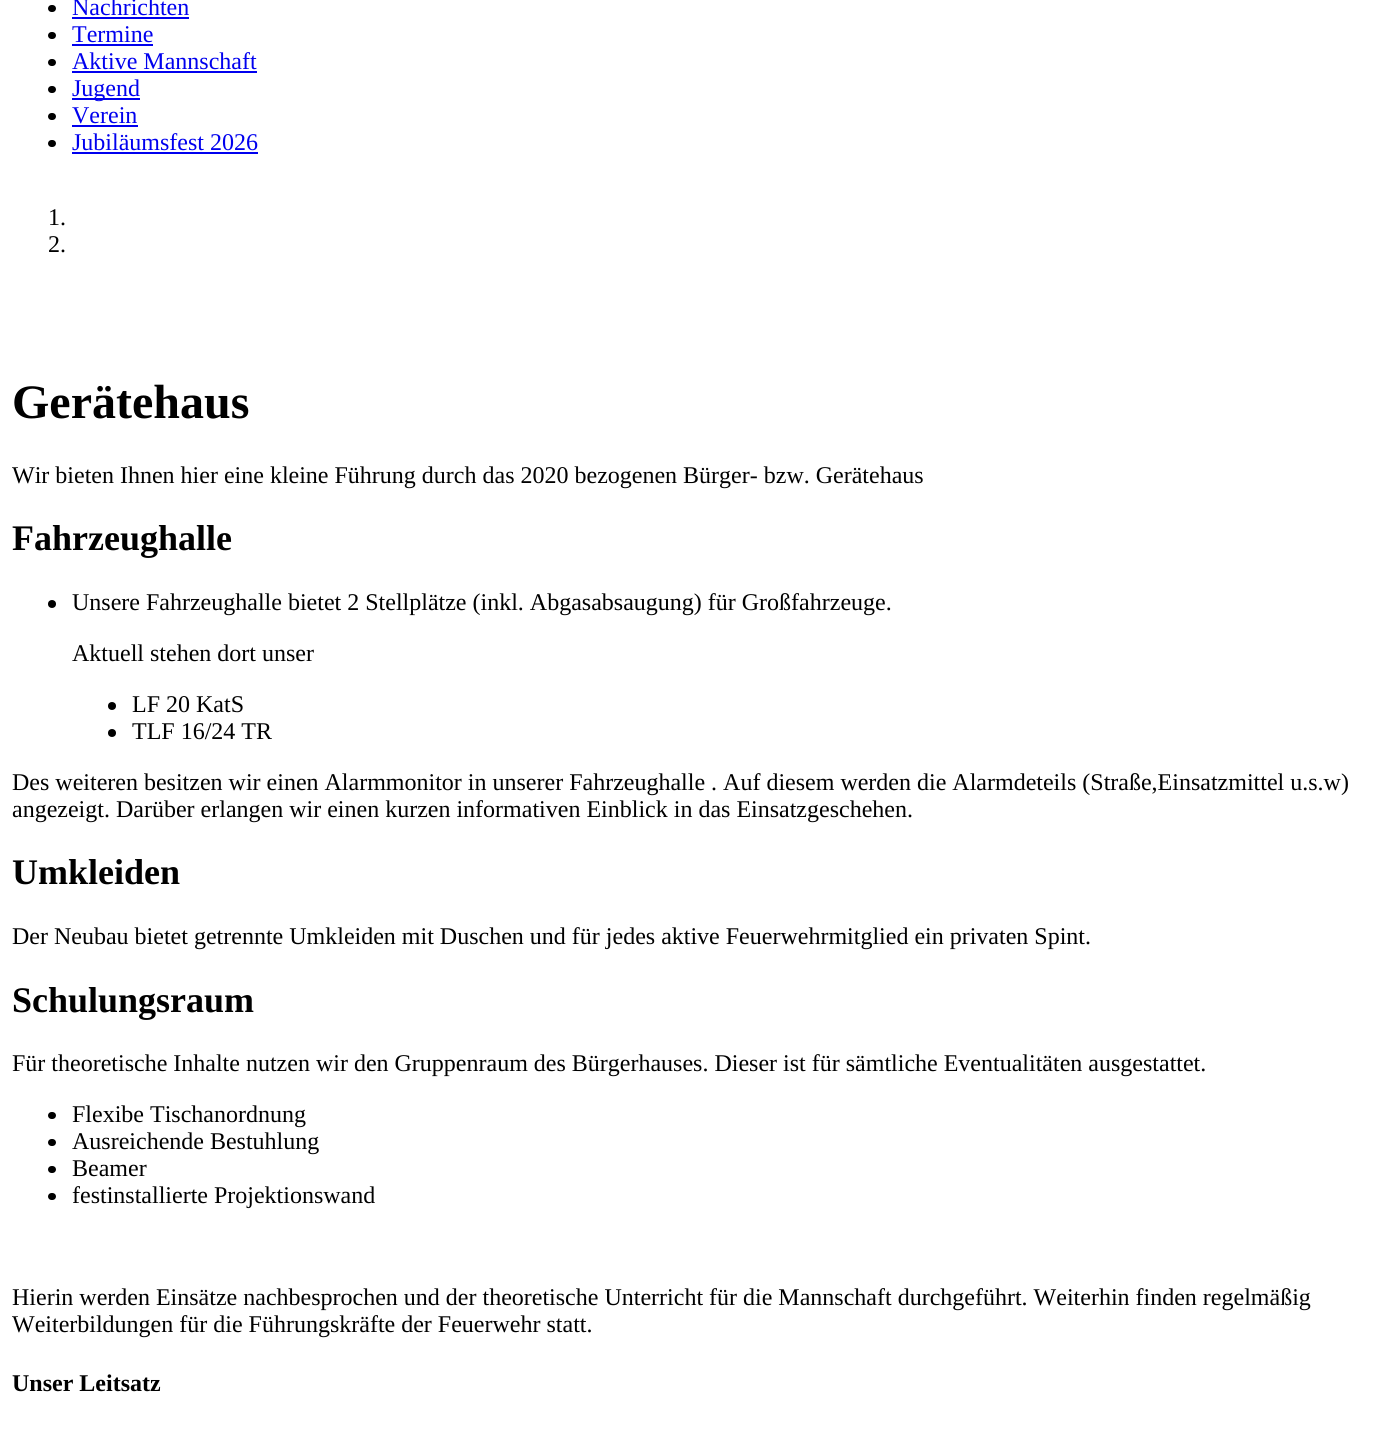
#include <cairo/cairo.h>
#include <math.h>
#include <stddef.h>

typedef struct { double x, y; const char *s; } line_t;
static cairo_t *cr;

static void rgb(unsigned color)
{
	cairo_set_source_rgb(cr, (color >> 16) / 255.0, (color >> 8 & 255) / 255.0, (color & 255) / 255.0);
}

static void rrect(double x, double y, double w, double h, double r)
{
	cairo_new_sub_path(cr);
	cairo_arc(cr, x + w - r, y + h - r, r, 0, M_PI / 2);
	cairo_arc(cr, x + r, y + h - r, r, M_PI / 2, M_PI);
	cairo_arc(cr, x + r, y + r, r, M_PI, 1.5 * M_PI);
	cairo_arc(cr, x + w - r, y + r, r, 1.5 * M_PI, 2 * M_PI);
	cairo_close_path(cr);
}

int main(void) {
	cairo_surface_t *surface = cairo_image_surface_create(CAIRO_FORMAT_RGB24, 1398, 1440);
	cr = cairo_create(surface);
	cairo_font_options_t *options = cairo_font_options_create();
	cairo_font_options_set_hint_metrics(options, CAIRO_HINT_METRICS_OFF);
	cairo_font_options_set_hint_style(options, CAIRO_HINT_STYLE_NONE);
	cairo_set_font_options(cr, options);
	cairo_set_miter_limit(cr, 4);
	rgb(0xffffff);
	cairo_paint(cr);
	rgb(0x000000);
	rrect(48, 5, 8, 7, 3.5);
	cairo_fill(cr);
	rgb(0x0000ee);
	cairo_rectangle(cr, 72, 17, 117, 2);
	cairo_fill(cr);
	rgb(0x000000);
	rrect(48, 32, 8, 7, 3.5);
	cairo_fill(cr);
	rgb(0x0000ee);
	cairo_rectangle(cr, 72, 44, 81, 2);
	cairo_fill(cr);
	rgb(0x000000);
	rrect(48, 59, 8, 7, 3.5);
	cairo_fill(cr);
	rgb(0x0000ee);
	cairo_rectangle(cr, 72, 71, 185, 2);
	cairo_fill(cr);
	rgb(0x000000);
	rrect(48, 86, 8, 7, 3.5);
	cairo_fill(cr);
	rgb(0x0000ee);
	cairo_rectangle(cr, 72, 98, 68, 2);
	cairo_fill(cr);
	rgb(0x000000);
	rrect(48, 113, 8, 7, 3.5);
	cairo_fill(cr);
	rgb(0x0000ee);
	cairo_rectangle(cr, 72, 125, 66, 2);
	cairo_fill(cr);
	rgb(0x000000);
	rrect(48, 140, 8, 7, 3.5);
	cairo_fill(cr);
	rgb(0x0000ee);
	cairo_rectangle(cr, 72, 152, 186, 2);
	cairo_fill(cr);
	rgb(0x000000);
	cairo_arc(cr, 52, 604, 4, 0, 2 * M_PI);
	cairo_fill(cr);
	cairo_arc(cr, 112, 706, 4, 0, 2 * M_PI);
	cairo_fill(cr);
	cairo_arc(cr, 112, 733, 4, 0, 2 * M_PI);
	cairo_fill(cr);
	rrect(48, 1112, 8, 7, 3.5);
	cairo_fill(cr);
	rrect(48, 1139, 8, 7, 3.5);
	cairo_fill(cr);
	rrect(48, 1166, 8, 7, 3.5);
	cairo_fill(cr);
	rrect(48, 1193, 8, 7, 3.5);
	cairo_fill(cr);
	cairo_select_font_face(cr, "Liberation Serif", CAIRO_FONT_SLANT_NORMAL, CAIRO_FONT_WEIGHT_NORMAL);
	cairo_set_font_size(cr, 24);
	rgb(0x0000ee);
	{
		static const line_t items[] = {
			{72, 15, "Nachrichten"},
			{72, 42, "Termine"},
			{72, 69, "Aktive Mannschaft"},
			{72, 96, "Jugend"},
			{72, 123, "Verein"},
			{72, 150, "Jubiläumsfest 2026"},
		};
		for (size_t i = 0; i < sizeof items / sizeof *items; i++) {
			cairo_move_to(cr, items[i].x, items[i].y);
			cairo_show_text(cr, items[i].s);
		}
	}
	rgb(0x000000);
	cairo_move_to(cr, 48, 225);
	cairo_show_text(cr, "1.");
	cairo_move_to(cr, 48, 252);
	cairo_show_text(cr, "2.");
	cairo_select_font_face(cr, "Liberation Serif", CAIRO_FONT_SLANT_NORMAL, CAIRO_FONT_WEIGHT_BOLD);
	cairo_set_font_size(cr, 48);
	cairo_move_to(cr, 12, 418);
	cairo_show_text(cr, "Gerätehaus");
	cairo_select_font_face(cr, "Liberation Serif", CAIRO_FONT_SLANT_NORMAL, CAIRO_FONT_WEIGHT_NORMAL);
	cairo_set_font_size(cr, 24);
	cairo_move_to(cr, 12, 483);
	cairo_show_text(cr, "Wir bieten Ihnen hier eine kleine Führung durch das 2020 bezogenen Bürger- bzw. Gerätehaus");
	cairo_select_font_face(cr, "Liberation Serif", CAIRO_FONT_SLANT_NORMAL, CAIRO_FONT_WEIGHT_BOLD);
	cairo_set_font_size(cr, 36);
	cairo_move_to(cr, 12, 550);
	cairo_show_text(cr, "Fahrzeughalle");
	cairo_select_font_face(cr, "Liberation Serif", CAIRO_FONT_SLANT_NORMAL, CAIRO_FONT_WEIGHT_NORMAL);
	cairo_set_font_size(cr, 24);
	{
		static const line_t items[] = {
			{72, 610, "Unsere Fahrzeughalle bietet 2 Stellplätze (inkl. Abgasabsaugung) für Großfahrzeuge."},
			{72, 661, "Aktuell stehen dort unser"},
			{132, 712, "LF 20 KatS"},
			{132, 739, "TLF 16/24 TR"},
			{12, 790, "Des weiteren besitzen wir einen Alarmmonitor in unserer Fahrzeughalle . Auf diesem werden die Alarmdeteils (Straße,Einsatzmittel u.s.w)"},
			{12, 817, "angezeigt. Darüber erlangen wir einen kurzen informativen Einblick in das Einsatzgeschehen."},
		};
		for (size_t i = 0; i < sizeof items / sizeof *items; i++) {
			cairo_move_to(cr, items[i].x, items[i].y);
			cairo_show_text(cr, items[i].s);
		}
	}
	cairo_select_font_face(cr, "Liberation Serif", CAIRO_FONT_SLANT_NORMAL, CAIRO_FONT_WEIGHT_BOLD);
	cairo_set_font_size(cr, 36);
	cairo_move_to(cr, 12, 884);
	cairo_show_text(cr, "Umkleiden");
	cairo_select_font_face(cr, "Liberation Serif", CAIRO_FONT_SLANT_NORMAL, CAIRO_FONT_WEIGHT_NORMAL);
	cairo_set_font_size(cr, 24);
	cairo_move_to(cr, 12, 944);
	cairo_show_text(cr, "Der Neubau bietet getrennte Umkleiden mit Duschen und für jedes aktive Feuerwehrmitglied ein privaten Spint.");
	cairo_select_font_face(cr, "Liberation Serif", CAIRO_FONT_SLANT_NORMAL, CAIRO_FONT_WEIGHT_BOLD);
	cairo_set_font_size(cr, 36);
	cairo_move_to(cr, 12, 1012);
	cairo_show_text(cr, "Schulungsraum");
	cairo_select_font_face(cr, "Liberation Serif", CAIRO_FONT_SLANT_NORMAL, CAIRO_FONT_WEIGHT_NORMAL);
	cairo_set_font_size(cr, 24);
	{
		static const line_t items[] = {
			{12, 1071, "Für theoretische Inhalte nutzen wir den Gruppenraum des Bürgerhauses. Dieser ist für sämtliche Eventualitäten ausgestattet."},
			{72, 1122, "Flexibe Tischanordnung"},
			{72, 1149, "Ausreichende Bestuhlung"},
			{72, 1176, "Beamer"},
			{72, 1203, "festinstallierte Projektionswand"},
			{12, 1305, "Hierin werden Einsätze nachbesprochen und der theoretische Unterricht für die Mannschaft durchgeführt. Weiterhin finden regelmäßig"},
			{12, 1332, "Weiterbildungen für die Führungskräfte der Feuerwehr statt."},
		};
		for (size_t i = 0; i < sizeof items / sizeof *items; i++) {
			cairo_move_to(cr, items[i].x, items[i].y);
			cairo_show_text(cr, items[i].s);
		}
	}
	cairo_select_font_face(cr, "Liberation Serif", CAIRO_FONT_SLANT_NORMAL, CAIRO_FONT_WEIGHT_BOLD);
	cairo_move_to(cr, 12, 1391);
	cairo_show_text(cr, "Unser Leitsatz");
	cairo_surface_write_to_png(surface, "page.png");
	cairo_font_options_destroy(options);
	cairo_destroy(cr);
	cairo_surface_destroy(surface);
	return 0;
}
